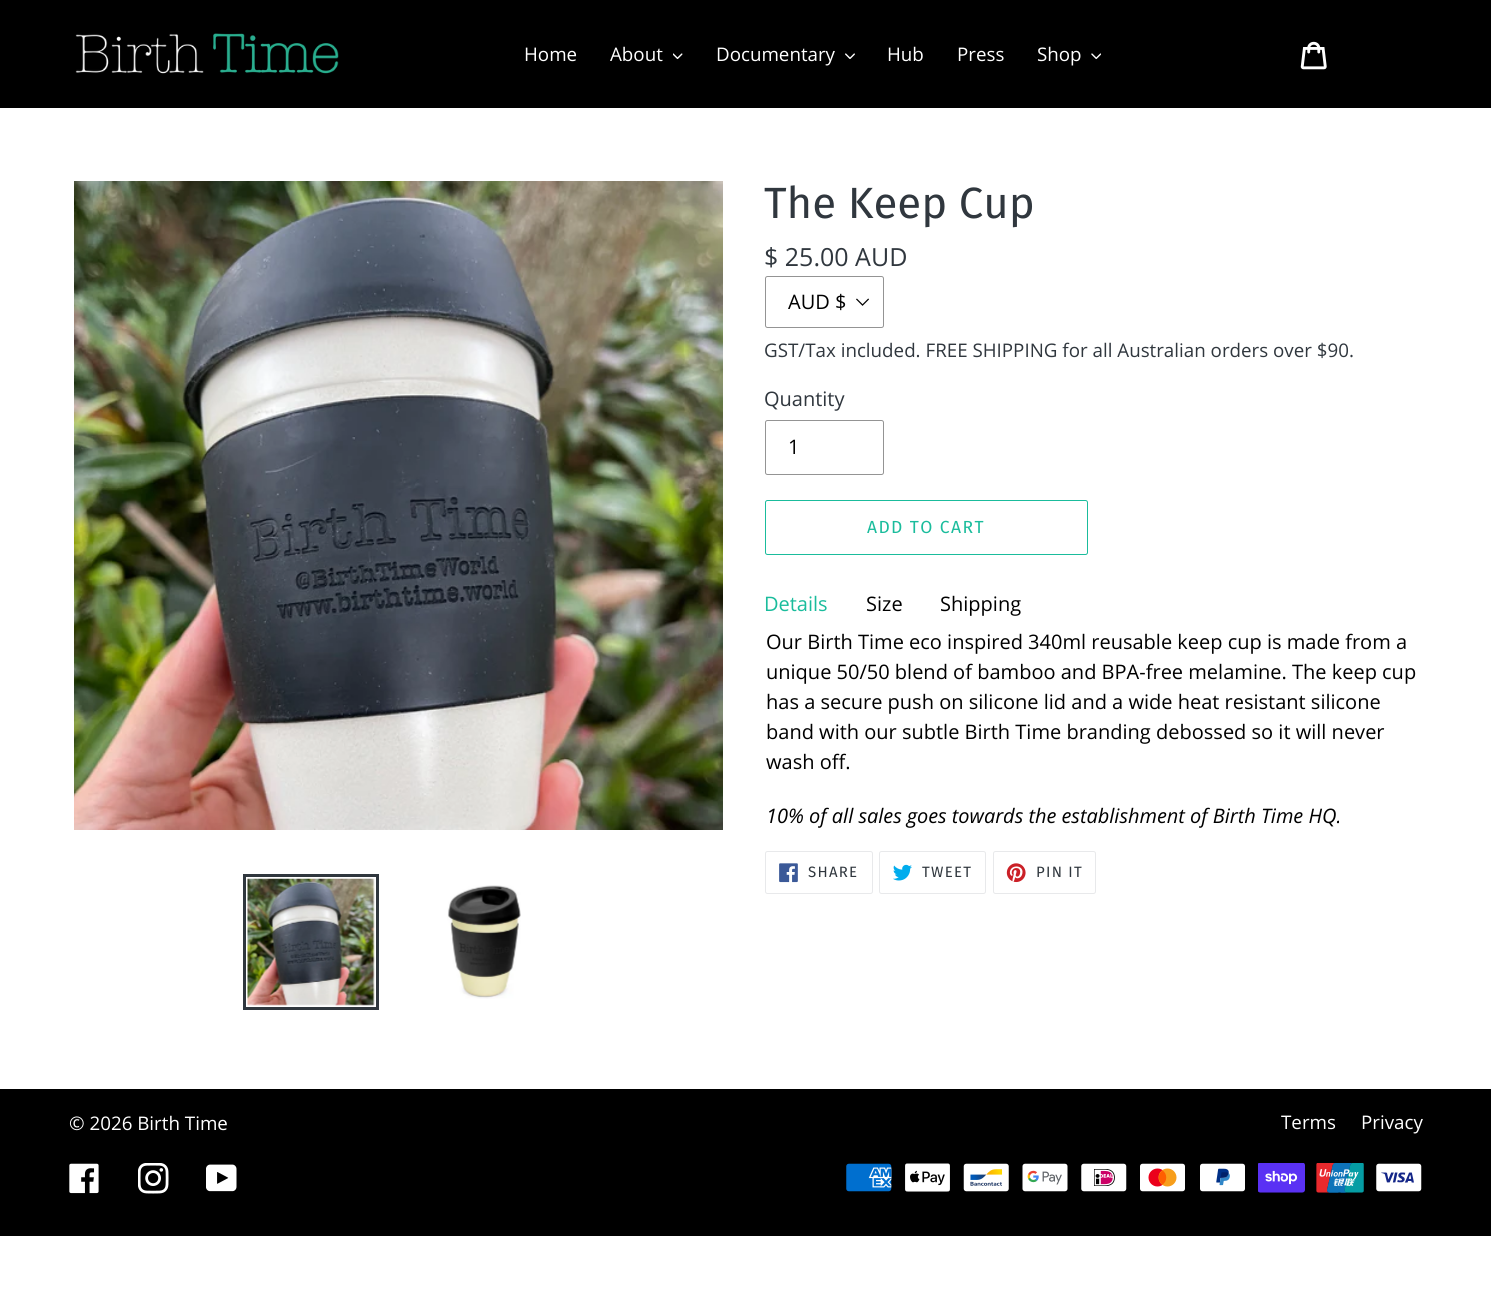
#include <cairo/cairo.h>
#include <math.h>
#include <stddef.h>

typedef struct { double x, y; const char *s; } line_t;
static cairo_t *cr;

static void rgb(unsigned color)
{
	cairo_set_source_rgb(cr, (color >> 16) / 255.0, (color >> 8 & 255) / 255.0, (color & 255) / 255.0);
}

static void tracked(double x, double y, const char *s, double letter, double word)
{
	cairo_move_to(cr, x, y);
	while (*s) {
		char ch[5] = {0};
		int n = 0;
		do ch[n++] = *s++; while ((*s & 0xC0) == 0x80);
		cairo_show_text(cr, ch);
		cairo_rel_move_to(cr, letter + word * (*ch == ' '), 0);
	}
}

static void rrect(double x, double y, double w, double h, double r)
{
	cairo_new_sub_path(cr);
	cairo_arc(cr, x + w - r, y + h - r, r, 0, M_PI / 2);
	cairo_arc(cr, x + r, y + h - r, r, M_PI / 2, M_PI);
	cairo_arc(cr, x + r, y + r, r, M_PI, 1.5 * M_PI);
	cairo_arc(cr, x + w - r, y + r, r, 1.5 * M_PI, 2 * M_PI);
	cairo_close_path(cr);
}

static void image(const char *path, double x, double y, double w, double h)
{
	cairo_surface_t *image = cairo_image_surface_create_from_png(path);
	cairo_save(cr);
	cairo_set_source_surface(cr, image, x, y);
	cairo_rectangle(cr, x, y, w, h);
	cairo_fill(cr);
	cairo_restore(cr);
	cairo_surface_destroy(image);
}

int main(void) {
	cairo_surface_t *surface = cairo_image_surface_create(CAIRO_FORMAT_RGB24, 1491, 1304);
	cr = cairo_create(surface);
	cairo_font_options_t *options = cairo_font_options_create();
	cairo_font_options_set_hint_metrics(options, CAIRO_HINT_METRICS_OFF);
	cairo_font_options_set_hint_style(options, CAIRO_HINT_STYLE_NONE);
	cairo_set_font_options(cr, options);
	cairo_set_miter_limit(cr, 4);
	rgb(0xffffff);
	cairo_paint(cr);
	rgb(0x000000);
	cairo_rectangle(cr, 0, 0, 1491, 108);
	cairo_fill(cr);
	image("img/1.png", 75, 33, 264, 41);
	image("img/2.png", 673, 53, 10, 7);
	image("img/3.png", 845, 53, 10, 6);
	image("img/4.png", 1091, 53, 10, 7);
	image("img/5.png", 1300, 41, 27, 29);
	image("img/6.png", 74, 181, 649, 649);
	cairo_rectangle(cr, 244.5, 875.5, 133, 133);
	rgb(0x30373e);
	cairo_set_line_width(cr, 3);
	cairo_stroke(cr);
	image("img/7.png", 247, 878, 128, 128);
	image("img/8.png", 447, 885, 74, 114);
	image("img/9.png", 856, 298, 13, 8);
	rrect(765.5, 276.5, 118, 51, 2);
	rgb(0x949494);
	cairo_set_line_width(cr, 1);
	cairo_stroke(cr);
	rrect(765.5, 420.5, 118, 54, 2);
	cairo_stroke(cr);
	rrect(765.5, 500.5, 322, 54, 2);
	rgb(0x1abc9c);
	cairo_stroke(cr);
	rrect(765.5, 851.5, 107, 42, 2);
	rgb(0xe8e9eb);
	cairo_stroke(cr);
	image("img/10.png", 779, 863, 19, 20);
	rrect(879.5, 851.5, 106, 42, 2);
	cairo_stroke(cr);
	image("img/11.png", 893, 864, 19, 17);
	rrect(993.5, 851.5, 102, 42, 2);
	cairo_stroke(cr);
	image("img/12.png", 1006, 863, 20, 20);
	rgb(0x000000);
	cairo_rectangle(cr, 0, 1089, 1491, 147);
	cairo_fill(cr);
	image("img/13.png", 69, 1163, 30, 31);
	image("img/14.png", 138, 1163, 31, 31);
	image("img/15.png", 206, 1164, 31, 28);
	image("img/16.png", 846, 1163, 46, 29);
	image("img/17.png", 905, 1163, 45, 29);
	image("img/18.png", 963, 1163, 46, 29);
	image("img/19.png", 1022, 1163, 46, 29);
	image("img/20.png", 1081, 1163, 46, 29);
	image("img/21.png", 1140, 1163, 45, 29);
	image("img/22.png", 1200, 1163, 45, 29);
	image("img/23.png", 1258, 1163, 47, 30);
	image("img/24.png", 1316, 1163, 48, 30);
	image("img/25.png", 1376, 1163, 46, 29);
	cairo_select_font_face(cr, "Open Sans", CAIRO_FONT_SLANT_NORMAL, CAIRO_FONT_WEIGHT_NORMAL);
	cairo_set_font_size(cr, 18.75);
	rgb(0xffffff);
	{
		static const line_t items[] = {
			{524, 61, "Home"},
			{610, 61, "About"},
			{716, 61, "Documentary"},
			{887, 61, "Hub"},
			{957, 61, "Press"},
			{1037, 61, "Shop"},
		};
		for (size_t i = 0; i < sizeof items / sizeof *items; i++) {
			cairo_move_to(cr, items[i].x, items[i].y);
			cairo_show_text(cr, items[i].s);
		}
	}
	cairo_select_font_face(cr, "Fira Sans", CAIRO_FONT_SLANT_NORMAL, CAIRO_FONT_WEIGHT_NORMAL);
	cairo_set_font_size(cr, 43.75);
	rgb(0x30373e);
	cairo_move_to(cr, 764, 218);
	cairo_show_text(cr, "The Keep Cup");
	cairo_select_font_face(cr, "Open Sans", CAIRO_FONT_SLANT_NORMAL, CAIRO_FONT_WEIGHT_NORMAL);
	cairo_set_font_size(cr, 25);
	cairo_move_to(cr, 764, 266);
	cairo_show_text(cr, "$ 25.00 AUD");
	cairo_set_font_size(cr, 20);
	rgb(0x000000);
	cairo_move_to(cr, 788, 309);
	cairo_show_text(cr, "AUD $");
	cairo_set_font_size(cr, 18.75);
	rgb(0x30373e);
	cairo_move_to(cr, 764, 357);
	cairo_show_text(cr, "GST/Tax included. FREE SHIPPING for all Australian orders over $90.");
	cairo_set_font_size(cr, 20);
	cairo_move_to(cr, 764, 406);
	cairo_show_text(cr, "Quantity");
	rgb(0x000000);
	cairo_move_to(cr, 788, 454);
	cairo_show_text(cr, "1");
	cairo_select_font_face(cr, "Fira Sans", CAIRO_FONT_SLANT_NORMAL, CAIRO_FONT_WEIGHT_NORMAL);
	cairo_set_font_size(cr, 17.5);
	rgb(0x1abc9c);
	tracked(867, 533, "ADD TO CART", 1.4, 0);
	cairo_select_font_face(cr, "Open Sans", CAIRO_FONT_SLANT_NORMAL, CAIRO_FONT_WEIGHT_NORMAL);
	cairo_set_font_size(cr, 20);
	cairo_move_to(cr, 764, 611);
	cairo_show_text(cr, "Details");
	rgb(0x000000);
	{
		static const line_t items[] = {
			{866, 611, "Size"},
			{940, 611, "Shipping"},
			{766, 649, "Our Birth Time eco inspired 340ml reusable keep cup is made from a"},
			{766, 679, "unique 50/50 blend of bamboo and BPA-free melamine. The keep cup"},
			{766, 709, "has a secure push on silicone lid and a wide heat resistant silicone"},
			{766, 739, "band with our subtle Birth Time branding debossed so it will never"},
			{766, 769, "wash off."},
		};
		for (size_t i = 0; i < sizeof items / sizeof *items; i++) {
			cairo_move_to(cr, items[i].x, items[i].y);
			cairo_show_text(cr, items[i].s);
		}
	}
	cairo_select_font_face(cr, "Open Sans", CAIRO_FONT_SLANT_ITALIC, CAIRO_FONT_WEIGHT_NORMAL);
	cairo_move_to(cr, 766, 823);
	cairo_show_text(cr, "10% of all sales goes towards the establishment of Birth Time HQ.");
	cairo_select_font_face(cr, "Fira Sans", CAIRO_FONT_SLANT_NORMAL, CAIRO_FONT_WEIGHT_NORMAL);
	cairo_set_font_size(cr, 15);
	rgb(0x30373e);
	{
		static const line_t items[] = {
			{808, 877, "SHARE"},
			{922, 877, "TWEET"},
			{1036, 877, "PIN IT"},
		};
		for (size_t i = 0; i < sizeof items / sizeof *items; i++) {
			tracked(items[i].x, items[i].y, items[i].s, 1.25, 0);
		}
	}
	cairo_select_font_face(cr, "Open Sans", CAIRO_FONT_SLANT_NORMAL, CAIRO_FONT_WEIGHT_NORMAL);
	cairo_set_font_size(cr, 18.75);
	rgb(0xffffff);
	{
		static const line_t items[] = {
			{69, 1130, "© 2026 Birth Time"},
			{1281, 1129, "Terms"},
			{1361, 1129, "Privacy"},
		};
		for (size_t i = 0; i < sizeof items / sizeof *items; i++) {
			cairo_move_to(cr, items[i].x, items[i].y);
			cairo_show_text(cr, items[i].s);
		}
	}
	cairo_surface_write_to_png(surface, "page.png");
	cairo_font_options_destroy(options);
	cairo_destroy(cr);
	cairo_surface_destroy(surface);
	return 0;
}
